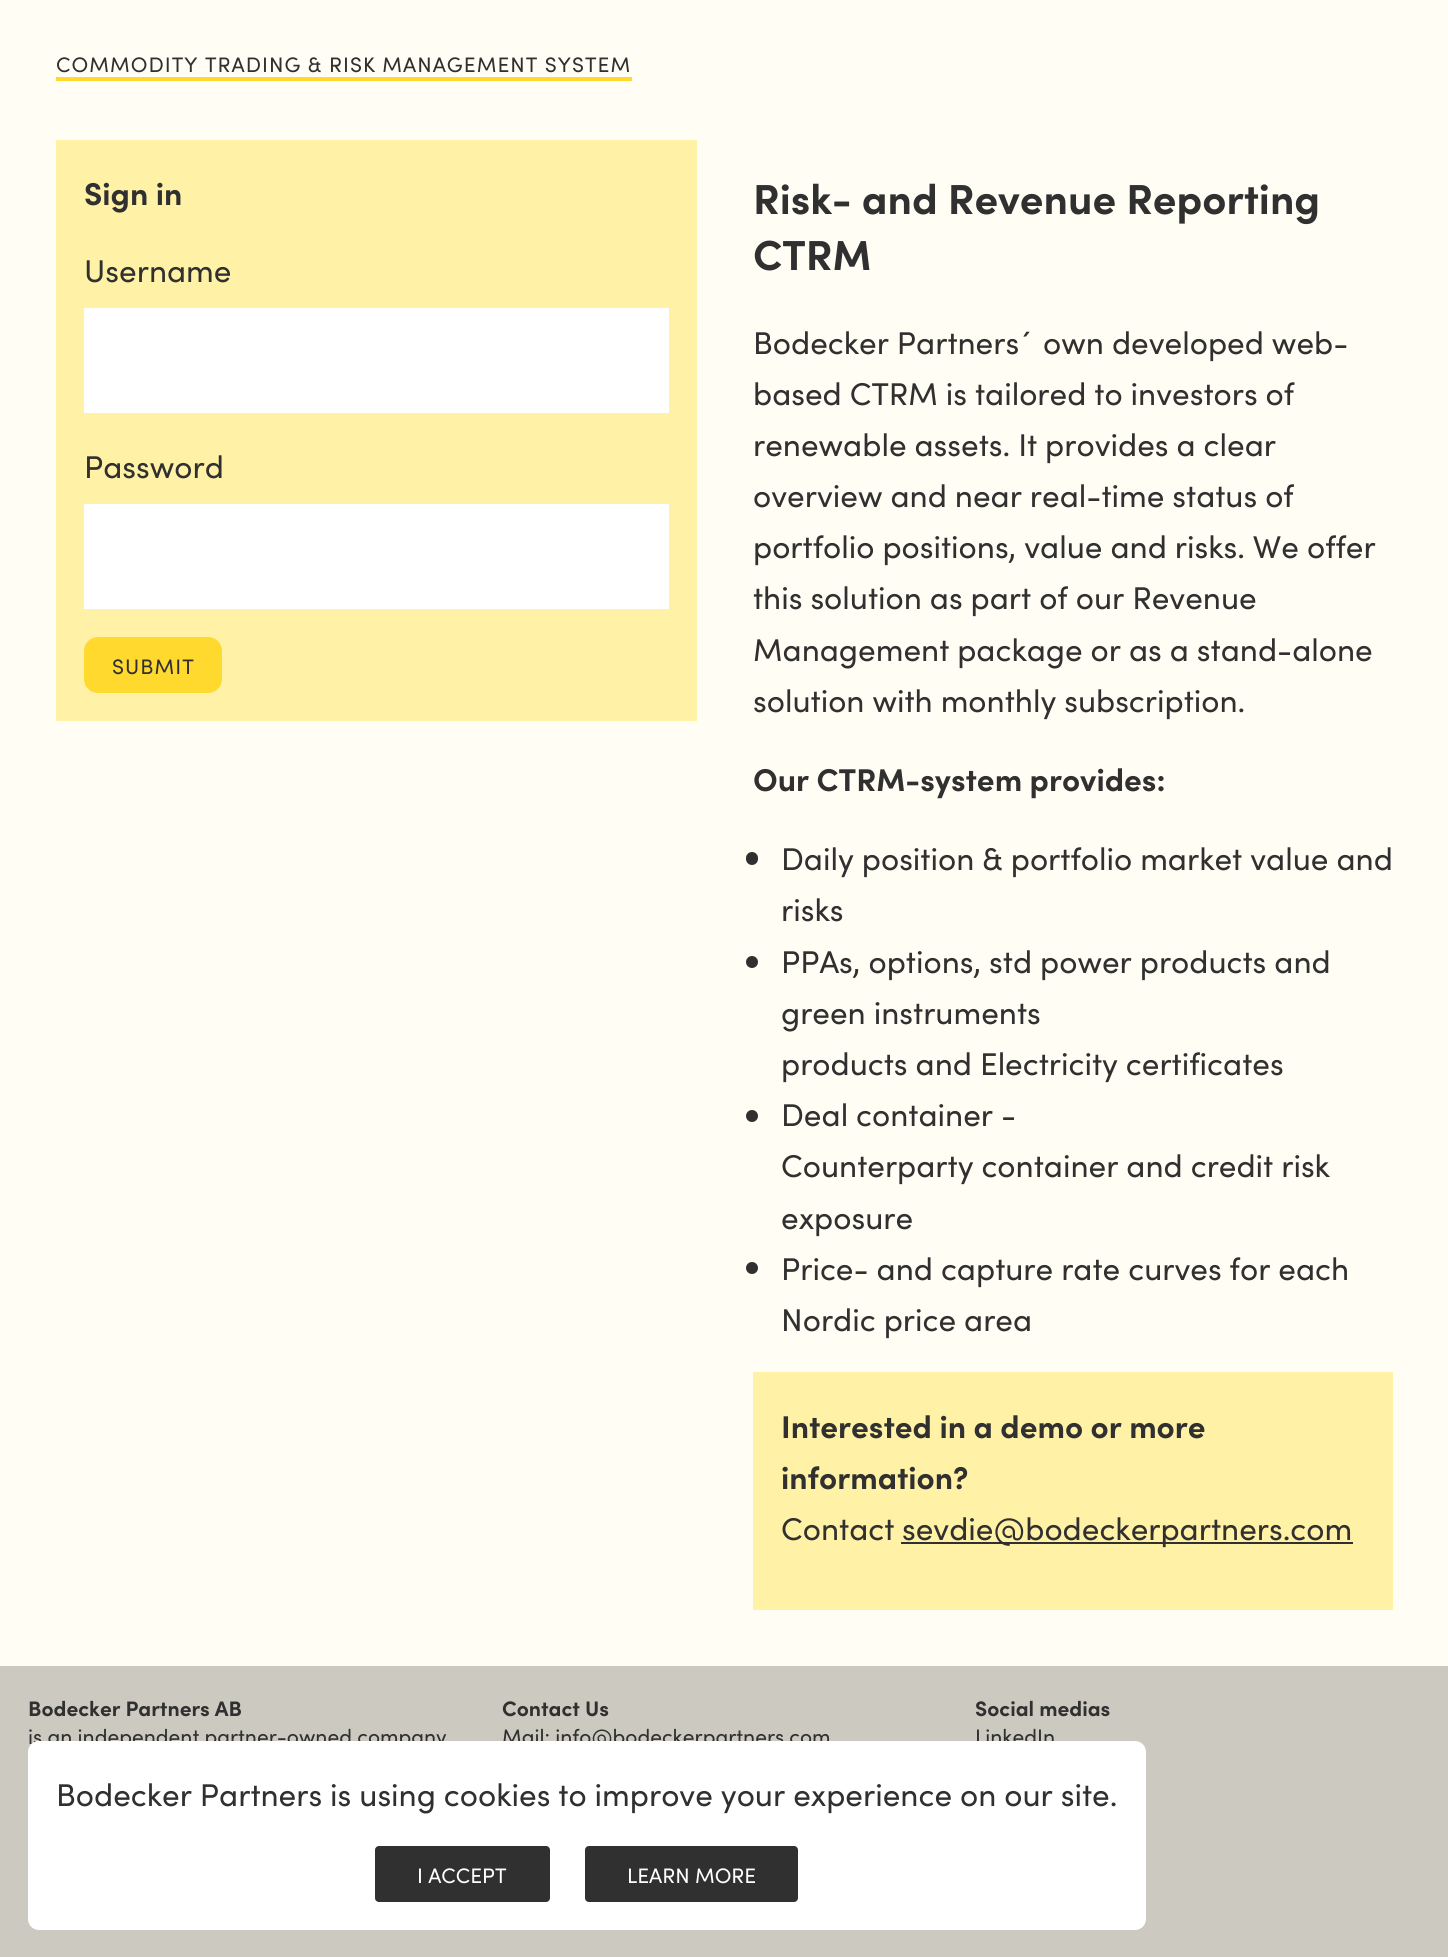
#include <cairo/cairo.h>
#include <math.h>
#include <stddef.h>

typedef struct { double x, y; const char *s; } line_t;
typedef struct { double x, y, w, h; unsigned color; } box_t;
static cairo_t *cr;

static void rgb(unsigned color)
{
	cairo_set_source_rgb(cr, (color >> 16) / 255.0, (color >> 8 & 255) / 255.0, (color & 255) / 255.0);
}

static void tracked(double x, double y, const char *s, double letter, double word)
{
	cairo_move_to(cr, x, y);
	while (*s) {
		char ch[5] = {0};
		int n = 0;
		do ch[n++] = *s++; while ((*s & 0xC0) == 0x80);
		cairo_show_text(cr, ch);
		cairo_rel_move_to(cr, letter + word * (*ch == ' '), 0);
	}
}

static void rrect(double x, double y, double w, double h, double r)
{
	cairo_new_sub_path(cr);
	cairo_arc(cr, x + w - r, y + h - r, r, 0, M_PI / 2);
	cairo_arc(cr, x + r, y + h - r, r, M_PI / 2, M_PI);
	cairo_arc(cr, x + r, y + r, r, M_PI, 1.5 * M_PI);
	cairo_arc(cr, x + w - r, y + r, r, 1.5 * M_PI, 2 * M_PI);
	cairo_close_path(cr);
}

int main(void) {
	cairo_surface_t *surface = cairo_image_surface_create(CAIRO_FORMAT_RGB24, 1448, 1957);
	cr = cairo_create(surface);
	cairo_font_options_t *options = cairo_font_options_create();
	cairo_font_options_set_hint_metrics(options, CAIRO_HINT_METRICS_OFF);
	cairo_font_options_set_hint_style(options, CAIRO_HINT_STYLE_NONE);
	cairo_set_font_options(cr, options);
	cairo_set_miter_limit(cr, 4);
	rgb(0xfffdf4);
	cairo_paint(cr);
	{
		static const box_t items[] = {
			{56, 77, 576, 4, 0xffd92e},
			{56, 140, 641, 581, 0xfff1a5},
			{84, 308, 585, 105, 0xffffff},
			{84, 504, 585, 105, 0xffffff},
		};
		for (size_t i = 0; i < sizeof items / sizeof *items; i++) {
			rgb(items[i].color);
			cairo_rectangle(cr, items[i].x, items[i].y, items[i].w, items[i].h);
			cairo_fill(cr);
		}
	}
	rgb(0xffd92e);
	rrect(84, 637, 138, 56, 14);
	cairo_fill(cr);
	rgb(0x303030);
	rrect(746, 852, 12, 13, 6);
	cairo_fill(cr);
	cairo_arc(cr, 752, 962, 6, 0, 2 * M_PI);
	cairo_fill(cr);
	cairo_arc(cr, 752, 1116, 6, 0, 2 * M_PI);
	cairo_fill(cr);
	cairo_arc(cr, 752, 1268, 6, 0, 2 * M_PI);
	cairo_fill(cr);
	{
		static const box_t items[] = {
			{753, 1372, 640, 238, 0xfff1a5},
			{901, 1542, 452, 2, 0x303030},
			{0, 1666, 1448, 291, 0xcbc9c0},
		};
		for (size_t i = 0; i < sizeof items / sizeof *items; i++) {
			rgb(items[i].color);
			cairo_rectangle(cr, items[i].x, items[i].y, items[i].w, items[i].h);
			cairo_fill(cr);
		}
	}
	cairo_select_font_face(cr, "Sofia", CAIRO_FONT_SLANT_NORMAL, CAIRO_FONT_WEIGHT_NORMAL);
	cairo_set_font_size(cr, 21);
	rgb(0x303030);
	tracked(56, 72, "COMMODITY TRADING & RISK MANAGEMENT SYSTEM", 1.05, 0);
	cairo_select_font_face(cr, "Sofia", CAIRO_FONT_SLANT_NORMAL, CAIRO_FONT_WEIGHT_BOLD);
	cairo_set_font_size(cr, 31.5);
	cairo_move_to(cr, 84, 205);
	cairo_show_text(cr, "Sign in");
	cairo_select_font_face(cr, "Sofia", CAIRO_FONT_SLANT_NORMAL, CAIRO_FONT_WEIGHT_NORMAL);
	cairo_move_to(cr, 84, 282);
	cairo_show_text(cr, "Username");
	cairo_move_to(cr, 84, 478);
	cairo_show_text(cr, "Password");
	cairo_set_font_size(cr, 21);
	tracked(112, 674, "SUBMIT", 1.05, 0);
	cairo_select_font_face(cr, "Sofia", CAIRO_FONT_SLANT_NORMAL, CAIRO_FONT_WEIGHT_BOLD);
	cairo_set_font_size(cr, 42);
	cairo_move_to(cr, 753, 214);
	cairo_show_text(cr, "Risk- and Revenue Reporting");
	cairo_move_to(cr, 753, 270);
	cairo_show_text(cr, "CTRM");
	cairo_select_font_face(cr, "Sofia", CAIRO_FONT_SLANT_NORMAL, CAIRO_FONT_WEIGHT_NORMAL);
	cairo_set_font_size(cr, 31.5);
	{
		static const line_t items[] = {
			{753, 354, "Bodecker Partners´ own developed web-"},
			{753, 405, "based CTRM is tailored to investors of"},
			{753, 456, "renewable assets. It provides a clear"},
			{753, 507, "overview and near real-time status of"},
			{753, 558, "portfolio positions, value and risks. We offer"},
			{753, 609, "this solution as part of our Revenue"},
			{753, 661, "Management package or as a stand-alone"},
			{753, 712, "solution with monthly subscription."},
		};
		for (size_t i = 0; i < sizeof items / sizeof *items; i++) {
			cairo_move_to(cr, items[i].x, items[i].y);
			cairo_show_text(cr, items[i].s);
		}
	}
	cairo_select_font_face(cr, "Sofia", CAIRO_FONT_SLANT_NORMAL, CAIRO_FONT_WEIGHT_BOLD);
	cairo_move_to(cr, 753, 791);
	cairo_show_text(cr, "Our CTRM-system provides:");
	cairo_select_font_face(cr, "Sofia", CAIRO_FONT_SLANT_NORMAL, CAIRO_FONT_WEIGHT_NORMAL);
	{
		static const line_t items[] = {
			{781, 870, "Daily position & portfolio market value and"},
			{781, 921, "risks"},
			{781, 973, "PPAs, options, std power products and"},
			{781, 1024, "green instruments"},
			{781, 1075, "products and Electricity certificates"},
			{781, 1126, "Deal container -"},
			{781, 1177, "Counterparty container and credit risk"},
			{781, 1229, "exposure"},
			{781, 1280, "Price- and capture rate curves for each"},
			{781, 1331, "Nordic price area"},
		};
		for (size_t i = 0; i < sizeof items / sizeof *items; i++) {
			cairo_move_to(cr, items[i].x, items[i].y);
			cairo_show_text(cr, items[i].s);
		}
	}
	cairo_select_font_face(cr, "Sofia", CAIRO_FONT_SLANT_NORMAL, CAIRO_FONT_WEIGHT_BOLD);
	cairo_move_to(cr, 781, 1438);
	cairo_show_text(cr, "Interested in a demo or more");
	cairo_move_to(cr, 781, 1489);
	cairo_show_text(cr, "information?");
	cairo_select_font_face(cr, "Sofia", CAIRO_FONT_SLANT_NORMAL, CAIRO_FONT_WEIGHT_NORMAL);
	cairo_move_to(cr, 781, 1540);
	cairo_show_text(cr, "Contact");
	cairo_move_to(cr, 902, 1540);
	cairo_show_text(cr, "sevdie@bodeckerpartners.com");
	cairo_select_font_face(cr, "Sofia", CAIRO_FONT_SLANT_NORMAL, CAIRO_FONT_WEIGHT_BOLD);
	cairo_set_font_size(cr, 21);
	cairo_move_to(cr, 28, 1716);
	cairo_show_text(cr, "Bodecker Partners AB");
	cairo_select_font_face(cr, "Sofia", CAIRO_FONT_SLANT_NORMAL, CAIRO_FONT_WEIGHT_NORMAL);
	cairo_move_to(cr, 28, 1744);
	cairo_show_text(cr, "is an independent partner-owned company");
	cairo_select_font_face(cr, "Sofia", CAIRO_FONT_SLANT_NORMAL, CAIRO_FONT_WEIGHT_BOLD);
	cairo_move_to(cr, 502, 1716);
	cairo_show_text(cr, "Contact Us");
	cairo_select_font_face(cr, "Sofia", CAIRO_FONT_SLANT_NORMAL, CAIRO_FONT_WEIGHT_NORMAL);
	cairo_move_to(cr, 502, 1744);
	cairo_show_text(cr, "Mail: info@bodeckerpartners.com");
	cairo_select_font_face(cr, "Sofia", CAIRO_FONT_SLANT_NORMAL, CAIRO_FONT_WEIGHT_BOLD);
	cairo_move_to(cr, 975, 1716);
	cairo_show_text(cr, "Social medias");
	cairo_select_font_face(cr, "Sofia", CAIRO_FONT_SLANT_NORMAL, CAIRO_FONT_WEIGHT_NORMAL);
	cairo_move_to(cr, 975, 1744);
	cairo_show_text(cr, "LinkedIn");
	rgb(0xffffff);
	rrect(28, 1741, 1118, 189, 11);
	cairo_fill(cr);
	cairo_set_font_size(cr, 31.5);
	rgb(0x303030);
	cairo_move_to(cr, 56, 1806);
	cairo_show_text(cr, "Bodecker Partners is using cookies to improve your experience on our site.");
	rrect(375, 1846, 175, 56, 4);
	cairo_fill(cr);
	cairo_set_font_size(cr, 21);
	rgb(0xffffff);
	cairo_move_to(cr, 417, 1883);
	cairo_show_text(cr, "I ACCEPT");
	rgb(0x303030);
	rrect(585, 1846, 213, 56, 4);
	cairo_fill(cr);
	rgb(0xffffff);
	cairo_move_to(cr, 627, 1883);
	cairo_show_text(cr, "LEARN MORE");
	cairo_surface_write_to_png(surface, "page.png");
	cairo_font_options_destroy(options);
	cairo_destroy(cr);
	cairo_surface_destroy(surface);
	return 0;
}
